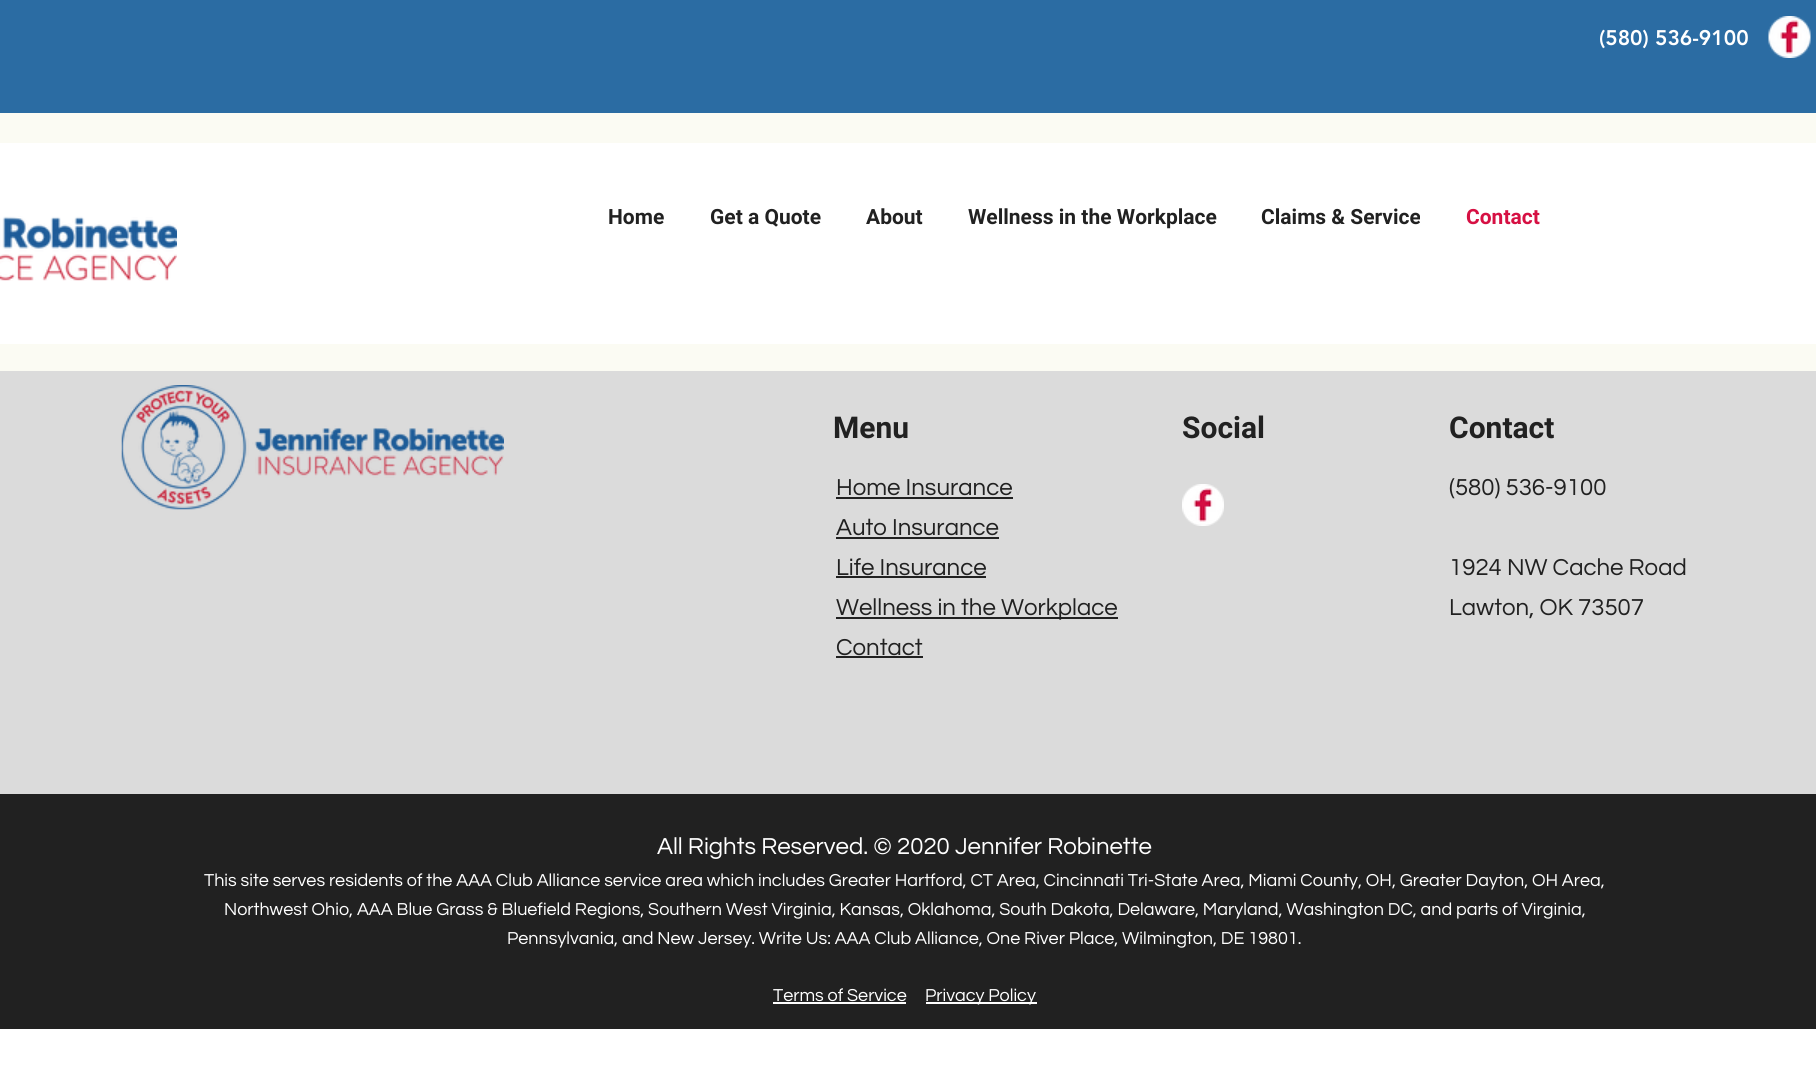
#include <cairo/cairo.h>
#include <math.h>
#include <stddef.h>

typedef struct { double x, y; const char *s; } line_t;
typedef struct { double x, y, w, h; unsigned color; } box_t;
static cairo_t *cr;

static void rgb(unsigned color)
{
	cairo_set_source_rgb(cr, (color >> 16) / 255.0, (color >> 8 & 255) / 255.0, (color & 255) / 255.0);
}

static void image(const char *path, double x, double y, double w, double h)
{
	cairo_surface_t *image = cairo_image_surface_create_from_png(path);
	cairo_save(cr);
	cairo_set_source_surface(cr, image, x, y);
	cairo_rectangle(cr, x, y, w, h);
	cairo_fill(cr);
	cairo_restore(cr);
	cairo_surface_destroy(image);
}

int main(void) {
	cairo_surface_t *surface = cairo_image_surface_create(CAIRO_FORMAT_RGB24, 1816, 1087);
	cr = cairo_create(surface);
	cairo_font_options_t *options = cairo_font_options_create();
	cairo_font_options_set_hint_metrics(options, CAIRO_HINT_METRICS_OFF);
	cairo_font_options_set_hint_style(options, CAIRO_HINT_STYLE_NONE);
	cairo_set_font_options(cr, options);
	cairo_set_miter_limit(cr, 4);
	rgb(0xffffff);
	cairo_paint(cr);
	rgb(0x2b6ca3);
	cairo_rectangle(cr, 0, 0, 1816, 113);
	cairo_fill(cr);
	image("img/1.png", 1768, 16, 43, 42);
	rgb(0xfbfbf3);
	cairo_rectangle(cr, 0, 113, 1816, 258);
	cairo_fill(cr);
	rgb(0xffffff);
	cairo_rectangle(cr, 0, 143, 1816, 201);
	cairo_fill(cr);
	image("img/2.png", 0, 216, 177, 65);
	rgb(0xdbdbdb);
	cairo_rectangle(cr, 0, 371, 1816, 423);
	cairo_fill(cr);
	image("img/3.png", 121, 385, 383, 125);
	{
		static const box_t items[] = {
			{836, 497, 177, 2, 0x212121},
			{836, 537, 163, 2, 0x212121},
			{836, 576, 150, 2, 0x212121},
			{836, 617, 282, 2, 0x212121},
			{836, 656, 87, 2, 0x212121},
		};
		for (size_t i = 0; i < sizeof items / sizeof *items; i++) {
			rgb(items[i].color);
			cairo_rectangle(cr, items[i].x, items[i].y, items[i].w, items[i].h);
			cairo_fill(cr);
		}
	}
	image("img/4.png", 1182, 484, 42, 42);
	{
		static const box_t items[] = {
			{0, 794, 1816, 235, 0x212121},
			{773, 1002, 133, 2, 0xffffff},
			{926, 1002, 111, 2, 0xffffff},
		};
		for (size_t i = 0; i < sizeof items / sizeof *items; i++) {
			rgb(items[i].color);
			cairo_rectangle(cr, items[i].x, items[i].y, items[i].w, items[i].h);
			cairo_fill(cr);
		}
	}
	cairo_select_font_face(cr, "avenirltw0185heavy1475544 Black", CAIRO_FONT_SLANT_NORMAL, CAIRO_FONT_WEIGHT_NORMAL);
	cairo_set_font_size(cr, 21);
	cairo_move_to(cr, 1599, 45);
	cairo_show_text(cr, "(580) 536-9100");
	cairo_select_font_face(cr, "Roboto", CAIRO_FONT_SLANT_NORMAL, CAIRO_FONT_WEIGHT_BOLD);
	rgb(0x212121);
	{
		static const line_t items[] = {
			{608, 224, "Home"},
			{710, 224, "Get a Quote"},
			{866, 224, "About"},
			{968, 224, "Wellness in the Workplace"},
			{1261, 224, "Claims & Service"},
		};
		for (size_t i = 0; i < sizeof items / sizeof *items; i++) {
			cairo_move_to(cr, items[i].x, items[i].y);
			cairo_show_text(cr, items[i].s);
		}
	}
	rgb(0xd61043);
	cairo_move_to(cr, 1466, 224);
	cairo_show_text(cr, "Contact");
	cairo_set_font_size(cr, 30);
	rgb(0x212121);
	{
		static const line_t items[] = {
			{833, 438, "Menu"},
			{1182, 438, "Social"},
			{1449, 438, "Contact"},
		};
		for (size_t i = 0; i < sizeof items / sizeof *items; i++) {
			cairo_move_to(cr, items[i].x, items[i].y);
			cairo_show_text(cr, items[i].s);
		}
	}
	cairo_select_font_face(cr, "Questrial", CAIRO_FONT_SLANT_NORMAL, CAIRO_FONT_WEIGHT_NORMAL);
	cairo_set_font_size(cr, 24);
	{
		static const line_t items[] = {
			{836, 495, "Home Insurance"},
			{836, 535, "Auto Insurance"},
			{836, 575, "Life Insurance"},
			{836, 615, "Wellness in the Workplace"},
			{836, 655, "Contact"},
			{1449, 495, "(580) 536-9100"},
			{1449, 575, "1924 NW Cache Road"},
			{1449, 615, "Lawton, OK 73507"},
		};
		for (size_t i = 0; i < sizeof items / sizeof *items; i++) {
			cairo_move_to(cr, items[i].x, items[i].y);
			cairo_show_text(cr, items[i].s);
		}
	}
	rgb(0xffffff);
	cairo_move_to(cr, 657, 854);
	cairo_show_text(cr, "All Rights Reserved. © 2020 Jennifer Robinette");
	cairo_set_font_size(cr, 18);
	{
		static const line_t items[] = {
			{204, 886, "This site serves residents of the AAA Club Alliance service area which includes Greater Hartford, CT Area, Cincinnati Tri-State Area, Miami County, OH, Greater Dayton, OH Area,"},
			{224, 915, "Northwest Ohio, AAA Blue Grass & Bluefield Regions, Southern West Virginia, Kansas, Oklahoma, South Dakota, Delaware, Maryland, Washington DC, and parts of Virginia,"},
			{507, 944, "Pennsylvania, and New Jersey. Write Us: AAA Club Alliance, One River Place, Wilmington, DE 19801."},
			{773, 1001, "Terms of Service"},
			{925, 1001, "Privacy Policy"},
		};
		for (size_t i = 0; i < sizeof items / sizeof *items; i++) {
			cairo_move_to(cr, items[i].x, items[i].y);
			cairo_show_text(cr, items[i].s);
		}
	}
	cairo_surface_write_to_png(surface, "page.png");
	cairo_font_options_destroy(options);
	cairo_destroy(cr);
	cairo_surface_destroy(surface);
	return 0;
}
